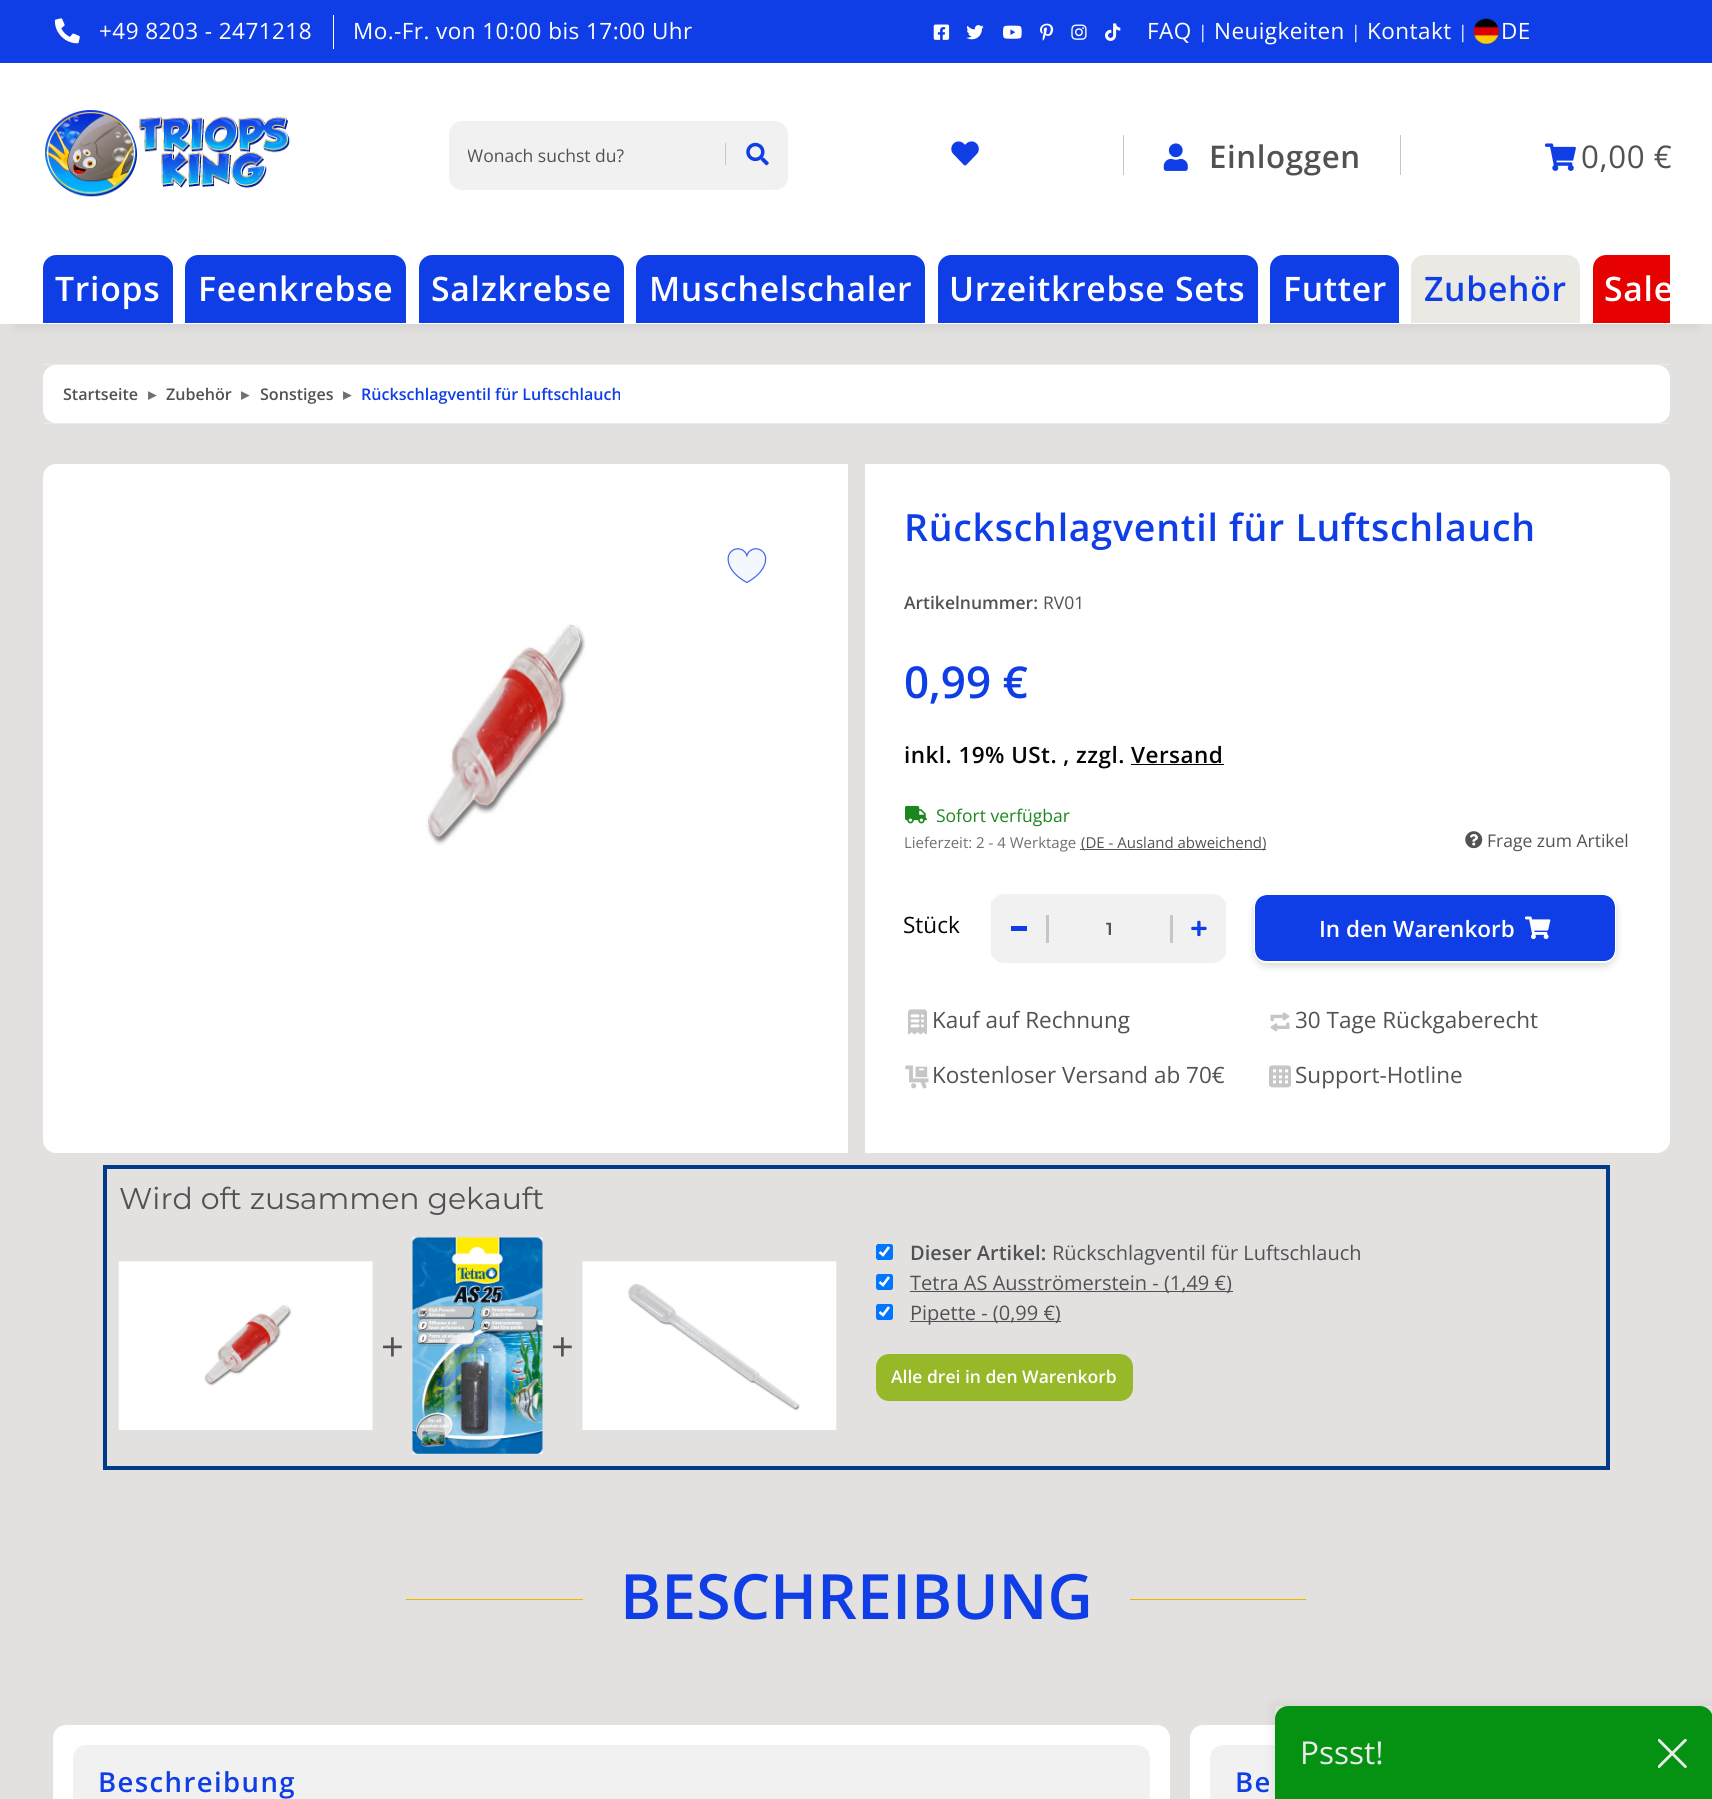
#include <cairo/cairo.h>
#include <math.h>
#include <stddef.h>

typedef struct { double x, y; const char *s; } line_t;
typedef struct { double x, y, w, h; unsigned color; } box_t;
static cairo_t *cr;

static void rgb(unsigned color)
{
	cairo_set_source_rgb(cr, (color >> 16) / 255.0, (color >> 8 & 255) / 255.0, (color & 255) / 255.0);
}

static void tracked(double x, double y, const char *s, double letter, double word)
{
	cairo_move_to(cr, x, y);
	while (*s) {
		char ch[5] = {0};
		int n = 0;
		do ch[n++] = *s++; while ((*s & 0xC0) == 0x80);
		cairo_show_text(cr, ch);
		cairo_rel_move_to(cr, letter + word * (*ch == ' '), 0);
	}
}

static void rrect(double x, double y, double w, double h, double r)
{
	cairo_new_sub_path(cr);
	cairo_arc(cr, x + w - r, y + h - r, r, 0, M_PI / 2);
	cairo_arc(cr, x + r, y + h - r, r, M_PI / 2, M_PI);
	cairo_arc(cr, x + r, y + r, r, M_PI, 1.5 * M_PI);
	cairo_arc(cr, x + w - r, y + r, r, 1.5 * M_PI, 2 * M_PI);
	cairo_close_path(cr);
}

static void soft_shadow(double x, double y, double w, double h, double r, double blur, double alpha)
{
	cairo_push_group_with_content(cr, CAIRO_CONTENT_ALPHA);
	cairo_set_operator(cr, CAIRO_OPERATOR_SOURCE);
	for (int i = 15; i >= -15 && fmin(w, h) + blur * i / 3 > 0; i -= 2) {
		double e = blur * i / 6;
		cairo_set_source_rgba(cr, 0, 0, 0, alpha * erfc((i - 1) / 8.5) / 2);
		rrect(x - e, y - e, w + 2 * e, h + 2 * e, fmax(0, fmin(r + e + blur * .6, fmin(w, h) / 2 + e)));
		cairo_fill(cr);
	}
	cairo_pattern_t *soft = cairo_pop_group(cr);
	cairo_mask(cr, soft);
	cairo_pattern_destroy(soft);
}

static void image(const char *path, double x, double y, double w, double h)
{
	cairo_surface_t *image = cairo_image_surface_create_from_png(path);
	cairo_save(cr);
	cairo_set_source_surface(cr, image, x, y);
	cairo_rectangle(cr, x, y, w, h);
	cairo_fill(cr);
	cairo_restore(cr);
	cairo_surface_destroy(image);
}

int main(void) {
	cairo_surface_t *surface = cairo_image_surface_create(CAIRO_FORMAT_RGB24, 1712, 1799);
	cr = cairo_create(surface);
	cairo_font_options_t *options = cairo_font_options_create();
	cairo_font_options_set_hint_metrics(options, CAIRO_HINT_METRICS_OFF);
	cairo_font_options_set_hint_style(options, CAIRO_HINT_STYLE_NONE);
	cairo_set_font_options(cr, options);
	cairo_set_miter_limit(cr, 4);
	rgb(0xe3e0e0);
	cairo_paint(cr);
	rgb(0x103ee6);
	cairo_rectangle(cr, 0, 0, 1712, 63);
	cairo_fill(cr);
	image("img/1.png", 54, 18, 26, 26);
	rgb(0xffffff);
	cairo_rectangle(cr, 333, 15, 1, 34);
	cairo_fill(cr);
	image("img/2.png", 933, 24, 17, 16);
	image("img/3.png", 966, 25, 18, 15);
	image("img/4.png", 1003, 25, 19, 14);
	image("img/5.png", 1040, 23, 14, 18);
	image("img/6.png", 1071, 24, 16, 16);
	image("img/7.png", 1105, 23, 16, 18);
	image("img/8.png", 1473, 18, 26, 26);
	rgb(0x000000);
	soft_shadow(15, 98, 1683, 231, 0, 5.5, 0.06);
	rgb(0xffffff);
	cairo_rectangle(cr, 0, 63, 1712, 261);
	cairo_fill(cr);
	image("img/9.png", 45, 110, 245, 87);
	rgb(0xf1f1f1);
	cairo_new_path(cr);
	cairo_move_to(cr, 462, 121);
	cairo_line_to(cr, 708, 121);
	cairo_line_to(cr, 708, 190);
	cairo_line_to(cr, 462, 190);
	cairo_curve_to(cr, 455, 190, 449, 184, 449, 177);
	cairo_line_to(cr, 449, 134);
	cairo_curve_to(cr, 449, 127, 455, 121, 462, 121);
	cairo_close_path(cr);
	cairo_fill(cr);
	cairo_new_path(cr);
	cairo_move_to(cr, 706, 121);
	cairo_line_to(cr, 775, 121);
	cairo_curve_to(cr, 782, 121, 788, 127, 788, 134);
	cairo_line_to(cr, 788, 177);
	cairo_curve_to(cr, 788, 184, 782, 190, 775, 190);
	cairo_line_to(cr, 706, 190);
	cairo_close_path(cr);
	cairo_fill(cr);
	rgb(0xc6c6c6);
	cairo_rectangle(cr, 725, 143, 1, 22);
	cairo_fill(cr);
	image("img/10.png", 746, 142, 23, 24);
	image("img/11.png", 951, 141, 28, 25);
	cairo_rectangle(cr, 1400, 135, 1, 40);
	cairo_fill(cr);
	cairo_rectangle(cr, 1123, 135, 1, 40);
	cairo_fill(cr);
	image("img/12.png", 1163, 143, 25, 28);
	image("img/13.png", 1545, 143, 31, 28);
	rgb(0x103ee6);
	cairo_new_path(cr);
	cairo_move_to(cr, 56, 255);
	cairo_line_to(cr, 160, 255);
	cairo_curve_to(cr, 167, 255, 173, 261, 173, 268);
	cairo_line_to(cr, 173, 323);
	cairo_line_to(cr, 43, 323);
	cairo_line_to(cr, 43, 268);
	cairo_curve_to(cr, 43, 261, 49, 255, 56, 255);
	cairo_close_path(cr);
	cairo_fill(cr);
	cairo_new_path(cr);
	cairo_move_to(cr, 198, 255);
	cairo_line_to(cr, 393, 255);
	cairo_curve_to(cr, 400, 255, 406, 261, 406, 268);
	cairo_line_to(cr, 406, 323);
	cairo_line_to(cr, 185, 323);
	cairo_line_to(cr, 185, 268);
	cairo_curve_to(cr, 185, 261, 191, 255, 198, 255);
	cairo_close_path(cr);
	cairo_fill(cr);
	cairo_new_path(cr);
	cairo_move_to(cr, 432, 255);
	cairo_line_to(cr, 611, 255);
	cairo_curve_to(cr, 618, 255, 624, 261, 624, 268);
	cairo_line_to(cr, 624, 323);
	cairo_line_to(cr, 419, 323);
	cairo_line_to(cr, 419, 268);
	cairo_curve_to(cr, 419, 261, 425, 255, 432, 255);
	cairo_close_path(cr);
	cairo_fill(cr);
	cairo_new_path(cr);
	cairo_move_to(cr, 649, 255);
	cairo_line_to(cr, 912, 255);
	cairo_curve_to(cr, 919, 255, 925, 261, 925, 268);
	cairo_line_to(cr, 925, 323);
	cairo_line_to(cr, 636, 323);
	cairo_line_to(cr, 636, 268);
	cairo_curve_to(cr, 636, 261, 642, 255, 649, 255);
	cairo_close_path(cr);
	cairo_fill(cr);
	cairo_new_path(cr);
	cairo_move_to(cr, 951, 255);
	cairo_line_to(cr, 1245, 255);
	cairo_curve_to(cr, 1252, 255, 1258, 261, 1258, 268);
	cairo_line_to(cr, 1258, 323);
	cairo_line_to(cr, 938, 323);
	cairo_line_to(cr, 938, 268);
	cairo_curve_to(cr, 938, 261, 944, 255, 951, 255);
	cairo_close_path(cr);
	cairo_fill(cr);
	cairo_new_path(cr);
	cairo_move_to(cr, 1283, 255);
	cairo_line_to(cr, 1386, 255);
	cairo_curve_to(cr, 1393, 255, 1399, 261, 1399, 268);
	cairo_line_to(cr, 1399, 323);
	cairo_line_to(cr, 1270, 323);
	cairo_line_to(cr, 1270, 268);
	cairo_curve_to(cr, 1270, 261, 1276, 255, 1283, 255);
	cairo_close_path(cr);
	cairo_fill(cr);
	rgb(0xebe9e4);
	cairo_new_path(cr);
	cairo_move_to(cr, 1424, 255);
	cairo_line_to(cr, 1567, 255);
	cairo_curve_to(cr, 1574, 255, 1580, 261, 1580, 268);
	cairo_line_to(cr, 1580, 323);
	cairo_line_to(cr, 1411, 323);
	cairo_line_to(cr, 1411, 268);
	cairo_curve_to(cr, 1411, 261, 1417, 255, 1424, 255);
	cairo_close_path(cr);
	cairo_fill(cr);
	rgb(0xe60000);
	cairo_new_path(cr);
	cairo_move_to(cr, 1606, 255);
	cairo_line_to(cr, 1670, 255);
	cairo_line_to(cr, 1670, 323);
	cairo_line_to(cr, 1593, 323);
	cairo_line_to(cr, 1593, 268);
	cairo_curve_to(cr, 1593, 261, 1599, 255, 1606, 255);
	cairo_close_path(cr);
	cairo_fill(cr);
	rgb(0xebebeb);
	cairo_rectangle(cr, 43, 364, 1627, 1);
	cairo_fill(cr);
	cairo_rectangle(cr, 43, 423, 1627, 1);
	cairo_fill(cr);
	rgb(0xffffff);
	rrect(43, 365, 1627, 58, 13);
	cairo_fill(cr);
	cairo_new_path(cr);
	cairo_move_to(cr, 56, 464);
	cairo_line_to(cr, 848, 464);
	cairo_line_to(cr, 848, 1153);
	cairo_line_to(cr, 56, 1153);
	cairo_curve_to(cr, 49, 1153, 43, 1147, 43, 1140);
	cairo_line_to(cr, 43, 477);
	cairo_curve_to(cr, 43, 470, 49, 464, 56, 464);
	cairo_close_path(cr);
	cairo_fill(cr);
	image("img/14.png", 727, 548, 40, 36);
	image("img/15.png", 426, 624, 160, 222);
	cairo_new_path(cr);
	cairo_move_to(cr, 865, 464);
	cairo_line_to(cr, 1657, 464);
	cairo_curve_to(cr, 1664, 464, 1670, 470, 1670, 477);
	cairo_line_to(cr, 1670, 1140);
	cairo_curve_to(cr, 1670, 1147, 1664, 1153, 1657, 1153);
	cairo_line_to(cr, 865, 1153);
	cairo_close_path(cr);
	cairo_fill(cr);
	rgb(0x040404);
	cairo_rectangle(cr, 1131, 764, 93, 1);
	cairo_fill(cr);
	image("img/16.png", 905, 805, 22, 19);
	rgb(0x525252);
	cairo_rectangle(cr, 1080, 849, 186, 1);
	cairo_fill(cr);
	image("img/17.png", 1465, 831, 18, 18);
	rgb(0xf1f1f1);
	rrect(991, 894, 235, 69, 13);
	cairo_fill(cr);
	{
		static const box_t items[] = {
			{991, 901, 2, 54, 0xf1f1f1},
			{1011, 926, 16, 5, 0x103ee6},
			{1170, 915, 3, 28, 0xc6c6c6},
			{1046, 915, 3, 28, 0xc6c6c6},
			{1224, 901, 2, 54, 0xf1f1f1},
		};
		for (size_t i = 0; i < sizeof items / sizeof *items; i++) {
			rgb(items[i].color);
			cairo_rectangle(cr, items[i].x, items[i].y, items[i].w, items[i].h);
			cairo_fill(cr);
		}
	}
	image("img/18.png", 1191, 920, 16, 17);
	cairo_save(cr);
	cairo_set_fill_rule(cr, CAIRO_FILL_RULE_EVEN_ODD);
	cairo_new_path(cr);
	cairo_move_to(cr, 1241, 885);
	cairo_line_to(cr, 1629, 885);
	cairo_line_to(cr, 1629, 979);
	cairo_line_to(cr, 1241, 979);
	cairo_close_path(cr);
	cairo_move_to(cr, 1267, 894);
	cairo_line_to(cr, 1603, 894);
	cairo_curve_to(cr, 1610, 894, 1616, 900, 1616, 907);
	cairo_line_to(cr, 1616, 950);
	cairo_curve_to(cr, 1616, 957, 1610, 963, 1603, 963);
	cairo_line_to(cr, 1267, 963);
	cairo_curve_to(cr, 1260, 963, 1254, 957, 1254, 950);
	cairo_line_to(cr, 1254, 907);
	cairo_curve_to(cr, 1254, 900, 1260, 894, 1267, 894);
	cairo_close_path(cr);
	cairo_clip(cr);
	rgb(0x000000);
	soft_shadow(1254, 898, 362, 68, 13, 4, 0.16);
	cairo_restore(cr);
	rgb(0x103ee6);
	rrect(1255, 895, 360, 66, 11);
	cairo_fill(cr);
	rrect(1254.5, 894.5, 361, 68, 12.5);
	rgb(0xffffff);
	cairo_set_line_width(cr, 1);
	cairo_stroke(cr);
	image("img/19.png", 1525, 916, 26, 23);
	image("img/20.png", 908, 1009, 19, 26);
	image("img/21.png", 905, 1065, 24, 24);
	image("img/22.png", 1270, 1012, 20, 20);
	image("img/23.png", 1269, 1065, 22, 23);
	cairo_rectangle(cr, 105, 1167, 1503, 301);
	rgb(0x013a85);
	cairo_set_line_width(cr, 4);
	cairo_stroke(cr);
	image("img/24.png", 118, 1261, 255, 169);
	image("img/25.png", 412, 1237, 131, 217);
	image("img/26.png", 582, 1261, 255, 169);
	rgb(0x0075ff);
	rrect(876, 1244, 17, 16, 2.5);
	cairo_fill(cr);
	cairo_new_path(cr);
	cairo_move_to(cr, 879.5, 1252);
	cairo_line_to(cr, 883, 1255);
	cairo_line_to(cr, 889, 1247);
	rgb(0xffffff);
	cairo_set_line_width(cr, 2.6);
	cairo_stroke(cr);
	rgb(0x0075ff);
	rrect(876, 1274, 17, 16, 2.5);
	cairo_fill(cr);
	cairo_new_path(cr);
	cairo_move_to(cr, 879.5, 1282);
	cairo_line_to(cr, 883, 1285);
	cairo_line_to(cr, 889, 1277);
	rgb(0xffffff);
	cairo_stroke(cr);
	rgb(0x525252);
	cairo_rectangle(cr, 910, 1291, 323, 1);
	cairo_fill(cr);
	rgb(0x0075ff);
	rrect(876, 1304, 17, 16, 2.5);
	cairo_fill(cr);
	cairo_new_path(cr);
	cairo_move_to(cr, 879.5, 1312);
	cairo_line_to(cr, 883, 1315);
	cairo_line_to(cr, 889, 1307);
	rgb(0xffffff);
	cairo_stroke(cr);
	rgb(0x525252);
	cairo_rectangle(cr, 910, 1321, 151, 1);
	cairo_fill(cr);
	rgb(0x96b829);
	rrect(876, 1354, 257, 47, 13);
	cairo_fill(cr);
	rgb(0xeeb700);
	cairo_rectangle(cr, 406, 1599, 177, 1);
	cairo_fill(cr);
	cairo_rectangle(cr, 1130, 1599, 176, 1);
	cairo_fill(cr);
	rgb(0xffffff);
	rrect(53, 1725, 1117, 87, 13);
	cairo_fill(cr);
	rgb(0xf1f1f1);
	cairo_new_path(cr);
	cairo_move_to(cr, 86, 1745);
	cairo_line_to(cr, 1137, 1745);
	cairo_curve_to(cr, 1144, 1745, 1150, 1751, 1150, 1758);
	cairo_line_to(cr, 1150, 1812);
	cairo_line_to(cr, 73, 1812);
	cairo_line_to(cr, 73, 1758);
	cairo_curve_to(cr, 73, 1751, 79, 1745, 86, 1745);
	cairo_close_path(cr);
	cairo_fill(cr);
	rgb(0xffffff);
	rrect(1190, 1725, 470, 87, 13);
	cairo_fill(cr);
	rgb(0xf1f1f1);
	cairo_new_path(cr);
	cairo_move_to(cr, 1223, 1745);
	cairo_line_to(cr, 1627, 1745);
	cairo_curve_to(cr, 1634, 1745, 1640, 1751, 1640, 1758);
	cairo_line_to(cr, 1640, 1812);
	cairo_line_to(cr, 1210, 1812);
	cairo_line_to(cr, 1210, 1758);
	cairo_curve_to(cr, 1210, 1751, 1216, 1745, 1223, 1745);
	cairo_close_path(cr);
	cairo_fill(cr);
	cairo_save(cr);
	cairo_set_fill_rule(cr, CAIRO_FILL_RULE_EVEN_ODD);
	cairo_new_path(cr);
	cairo_move_to(cr, 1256, 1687);
	cairo_line_to(cr, 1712, 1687);
	cairo_line_to(cr, 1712, 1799);
	cairo_line_to(cr, 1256, 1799);
	cairo_close_path(cr);
	cairo_move_to(cr, 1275, 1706);
	cairo_line_to(cr, 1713, 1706);
	cairo_line_to(cr, 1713, 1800);
	cairo_line_to(cr, 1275, 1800);
	cairo_close_path(cr);
	cairo_clip(cr);
	rgb(0x000000);
	soft_shadow(1275, 1706, 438, 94, 0, 6, 0.1);
	cairo_restore(cr);
	rgb(0x059212);
	cairo_new_path(cr);
	cairo_move_to(cr, 1288, 1706);
	cairo_line_to(cr, 1700, 1706);
	cairo_curve_to(cr, 1707, 1706, 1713, 1712, 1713, 1719);
	cairo_line_to(cr, 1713, 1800);
	cairo_line_to(cr, 1275, 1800);
	cairo_line_to(cr, 1275, 1719);
	cairo_curve_to(cr, 1275, 1712, 1281, 1706, 1288, 1706);
	cairo_close_path(cr);
	cairo_fill(cr);
	image("img/27.png", 1658, 1739, 29, 29);
	cairo_select_font_face(cr, "Open Sans", CAIRO_FONT_SLANT_NORMAL, CAIRO_FONT_WEIGHT_NORMAL);
	cairo_set_font_size(cr, 22.5);
	rgb(0xffffff);
	{
		static const line_t items[] = {
			{99, 39, "+49 8203 - 2471218"},
			{353, 39, "Mo.-Fr. von 10:00 bis 17:00 Uhr"},
			{1147, 39, "FAQ"},
		};
		for (size_t i = 0; i < sizeof items / sizeof *items; i++) {
			tracked(items[i].x, items[i].y, items[i].s, 0.45, 0);
		}
	}
	cairo_set_font_size(cr, 17.5);
	cairo_move_to(cr, 1198, 38);
	cairo_show_text(cr, "|");
	cairo_set_font_size(cr, 22.5);
	tracked(1214, 39, "Neuigkeiten", 0.45, 0);
	cairo_set_font_size(cr, 17.5);
	cairo_move_to(cr, 1351, 38);
	cairo_show_text(cr, "|");
	cairo_set_font_size(cr, 22.5);
	tracked(1367, 39, "Kontakt", 0.45, 0);
	cairo_set_font_size(cr, 17.5);
	cairo_move_to(cr, 1458, 38);
	cairo_show_text(cr, "|");
	cairo_set_font_size(cr, 22.5);
	tracked(1501, 39, "DE", 0.45, 0);
	cairo_save(cr);
	cairo_rectangle(cr, 468, 144, 221, 24);
	cairo_clip(cr);
	cairo_set_font_size(cr, 17.5);
	rgb(0x525252);
	cairo_move_to(cr, 467, 162);
	cairo_show_text(cr, "Wonach suchst du?");
	cairo_restore(cr);
	cairo_select_font_face(cr, "Open Sans SemiBold", CAIRO_FONT_SLANT_NORMAL, CAIRO_FONT_WEIGHT_NORMAL);
	cairo_set_font_size(cr, 31.25);
	rgb(0x525252);
	tracked(1209, 168, "Einloggen", 0.6, 0);
	cairo_select_font_face(cr, "Open Sans", CAIRO_FONT_SLANT_NORMAL, CAIRO_FONT_WEIGHT_NORMAL);
	tracked(1581, 168, "0,00 €", 0.6, 0);
	cairo_select_font_face(cr, "Open Sans SemiBold", CAIRO_FONT_SLANT_NORMAL, CAIRO_FONT_WEIGHT_NORMAL);
	cairo_set_font_size(cr, 33.75);
	rgb(0xffffff);
	{
		static const line_t items[] = {
			{55, 301, "Triops"},
			{198, 301, "Feenkrebse"},
			{431, 301, "Salzkrebse"},
			{649, 301, "Muschelschaler"},
			{949, 301, "Urzeitkrebse Sets"},
			{1283, 301, "Futter"},
		};
		for (size_t i = 0; i < sizeof items / sizeof *items; i++) {
			tracked(items[i].x, items[i].y, items[i].s, 0.7, 0);
		}
	}
	rgb(0x103ee6);
	tracked(1424, 301, "Zubehör", 0.7, 0);
	cairo_save(cr);
	cairo_rectangle(cr, 43, 255, 1627, 68);
	cairo_clip(cr);
	rgb(0xffffff);
	tracked(1604, 301, "Sale", 0.7, 0);
	cairo_restore(cr);
	cairo_set_font_size(cr, 16.1);
	rgb(0x525252);
	cairo_move_to(cr, 63, 400);
	cairo_show_text(cr, "Startseite");
	cairo_select_font_face(cr, "DejaVu Sans", CAIRO_FONT_SLANT_NORMAL, CAIRO_FONT_WEIGHT_BOLD);
	rgb(0x707070);
	cairo_move_to(cr, 148, 400);
	cairo_show_text(cr, "▸");
	cairo_select_font_face(cr, "Open Sans SemiBold", CAIRO_FONT_SLANT_NORMAL, CAIRO_FONT_WEIGHT_NORMAL);
	rgb(0x525252);
	cairo_move_to(cr, 166, 400);
	cairo_show_text(cr, "Zubehör");
	cairo_select_font_face(cr, "DejaVu Sans", CAIRO_FONT_SLANT_NORMAL, CAIRO_FONT_WEIGHT_BOLD);
	rgb(0x707070);
	cairo_move_to(cr, 241, 400);
	cairo_show_text(cr, "▸");
	cairo_select_font_face(cr, "Open Sans SemiBold", CAIRO_FONT_SLANT_NORMAL, CAIRO_FONT_WEIGHT_NORMAL);
	rgb(0x525252);
	cairo_move_to(cr, 260, 400);
	cairo_show_text(cr, "Sonstiges");
	cairo_select_font_face(cr, "DejaVu Sans", CAIRO_FONT_SLANT_NORMAL, CAIRO_FONT_WEIGHT_BOLD);
	rgb(0x707070);
	cairo_move_to(cr, 343, 400);
	cairo_show_text(cr, "▸");
	cairo_select_font_face(cr, "Open Sans SemiBold", CAIRO_FONT_SLANT_NORMAL, CAIRO_FONT_WEIGHT_NORMAL);
	rgb(0x103ee6);
	cairo_move_to(cr, 361, 400);
	cairo_show_text(cr, "Rückschlagventil für Luftschlauch");
	cairo_set_font_size(cr, 37.5);
	tracked(904, 541, "Rückschlagventil für Luftschlauch", 0.75, 0);
	cairo_set_font_size(cr, 17.5);
	rgb(0x525252);
	cairo_move_to(cr, 904, 609);
	cairo_show_text(cr, "Artikelnummer:");
	cairo_select_font_face(cr, "Open Sans", CAIRO_FONT_SLANT_NORMAL, CAIRO_FONT_WEIGHT_NORMAL);
	cairo_move_to(cr, 1043, 609);
	cairo_show_text(cr, "RV01");
	cairo_select_font_face(cr, "Open Sans SemiBold", CAIRO_FONT_SLANT_NORMAL, CAIRO_FONT_WEIGHT_NORMAL);
	cairo_set_font_size(cr, 44);
	rgb(0x103ee6);
	cairo_move_to(cr, 904, 698);
	cairo_show_text(cr, "0,99 €");
	cairo_set_font_size(cr, 22.5);
	rgb(0x040404);
	tracked(904, 763, "inkl. 19% USt. , zzgl. Versand", 0.45, 0);
	cairo_select_font_face(cr, "Open Sans", CAIRO_FONT_SLANT_NORMAL, CAIRO_FONT_WEIGHT_NORMAL);
	cairo_set_font_size(cr, 17.5);
	rgb(0x1c871e);
	cairo_move_to(cr, 936, 822);
	cairo_show_text(cr, "Sofort verfügbar");
	cairo_set_font_size(cr, 15);
	rgb(0x707070);
	cairo_move_to(cr, 904, 848);
	cairo_show_text(cr, "Lieferzeit: 2 - 4 Werktage");
	rgb(0x525252);
	cairo_move_to(cr, 1081, 848);
	cairo_show_text(cr, "(DE - Ausland abweichend)");
	cairo_set_font_size(cr, 17.5);
	cairo_move_to(cr, 1487, 847);
	cairo_show_text(cr, "Frage zum Artikel");
	cairo_set_font_size(cr, 22.5);
	rgb(0x040404);
	cairo_move_to(cr, 903, 933);
	cairo_show_text(cr, "Stück");
	cairo_select_font_face(cr, "Montserrat SemiBold", CAIRO_FONT_SLANT_NORMAL, CAIRO_FONT_WEIGHT_NORMAL);
	cairo_set_font_size(cr, 17.5);
	rgb(0x525252);
	cairo_move_to(cr, 1106, 935);
	cairo_show_text(cr, "1");
	cairo_select_font_face(cr, "Open Sans SemiBold", CAIRO_FONT_SLANT_NORMAL, CAIRO_FONT_WEIGHT_NORMAL);
	cairo_set_font_size(cr, 22.5);
	rgb(0xffffff);
	cairo_move_to(cr, 1319, 937);
	cairo_show_text(cr, "In den Warenkorb");
	cairo_select_font_face(cr, "Open Sans", CAIRO_FONT_SLANT_NORMAL, CAIRO_FONT_WEIGHT_NORMAL);
	rgb(0x525252);
	{
		static const line_t items[] = {
			{932, 1028, "Kauf auf Rechnung"},
			{932, 1083, "Kostenloser Versand ab 70€"},
			{1295, 1028, "30 Tage Rückgaberecht"},
			{1295, 1083, "Support-Hotline"},
		};
		for (size_t i = 0; i < sizeof items / sizeof *items; i++) {
			cairo_move_to(cr, items[i].x, items[i].y);
			cairo_show_text(cr, items[i].s);
		}
	}
	cairo_select_font_face(cr, "Montserrat Thin", CAIRO_FONT_SLANT_NORMAL, CAIRO_FONT_WEIGHT_NORMAL);
	cairo_set_font_size(cr, 30);
	cairo_move_to(cr, 119, 1209);
	cairo_show_text(cr, "Wird oft zusammen gekauft");
	cairo_select_font_face(cr, "Open Sans", CAIRO_FONT_SLANT_NORMAL, CAIRO_FONT_WEIGHT_NORMAL);
	cairo_set_font_size(cr, 40);
	cairo_move_to(cr, 381, 1361);
	cairo_show_text(cr, "+");
	cairo_move_to(cr, 551, 1361);
	cairo_show_text(cr, "+");
	cairo_select_font_face(cr, "Open Sans SemiBold", CAIRO_FONT_SLANT_NORMAL, CAIRO_FONT_WEIGHT_NORMAL);
	cairo_set_font_size(cr, 20);
	cairo_move_to(cr, 910, 1260);
	cairo_show_text(cr, "Dieser Artikel:");
	cairo_select_font_face(cr, "Open Sans", CAIRO_FONT_SLANT_NORMAL, CAIRO_FONT_WEIGHT_NORMAL);
	{
		static const line_t items[] = {
			{1052, 1260, "Rückschlagventil für Luftschlauch"},
			{910, 1290, "Tetra AS Ausströmerstein - (1,49 €)"},
			{910, 1320, "Pipette - (0,99 €)"},
		};
		for (size_t i = 0; i < sizeof items / sizeof *items; i++) {
			cairo_move_to(cr, items[i].x, items[i].y);
			cairo_show_text(cr, items[i].s);
		}
	}
	cairo_select_font_face(cr, "Open Sans SemiBold", CAIRO_FONT_SLANT_NORMAL, CAIRO_FONT_WEIGHT_NORMAL);
	cairo_set_font_size(cr, 17.5);
	rgb(0xffffff);
	cairo_move_to(cr, 891, 1383);
	cairo_show_text(cr, "Alle drei in den Warenkorb");
	cairo_set_font_size(cr, 62.5);
	rgb(0x103ee6);
	cairo_move_to(cr, 620, 1619);
	cairo_show_text(cr, "BESCHREIBUNG");
	cairo_set_font_size(cr, 27.5);
	tracked(98, 1792, "Beschreibung", 1.4, 0);
	tracked(1235, 1792, "Be", 1.4, 0);
	cairo_select_font_face(cr, "Open Sans", CAIRO_FONT_SLANT_NORMAL, CAIRO_FONT_WEIGHT_NORMAL);
	cairo_set_font_size(cr, 31.5);
	rgb(0xebebeb);
	cairo_move_to(cr, 1300, 1764);
	cairo_show_text(cr, "Pssst!");
	cairo_surface_write_to_png(surface, "page.png");
	cairo_font_options_destroy(options);
	cairo_destroy(cr);
	cairo_surface_destroy(surface);
	return 0;
}
